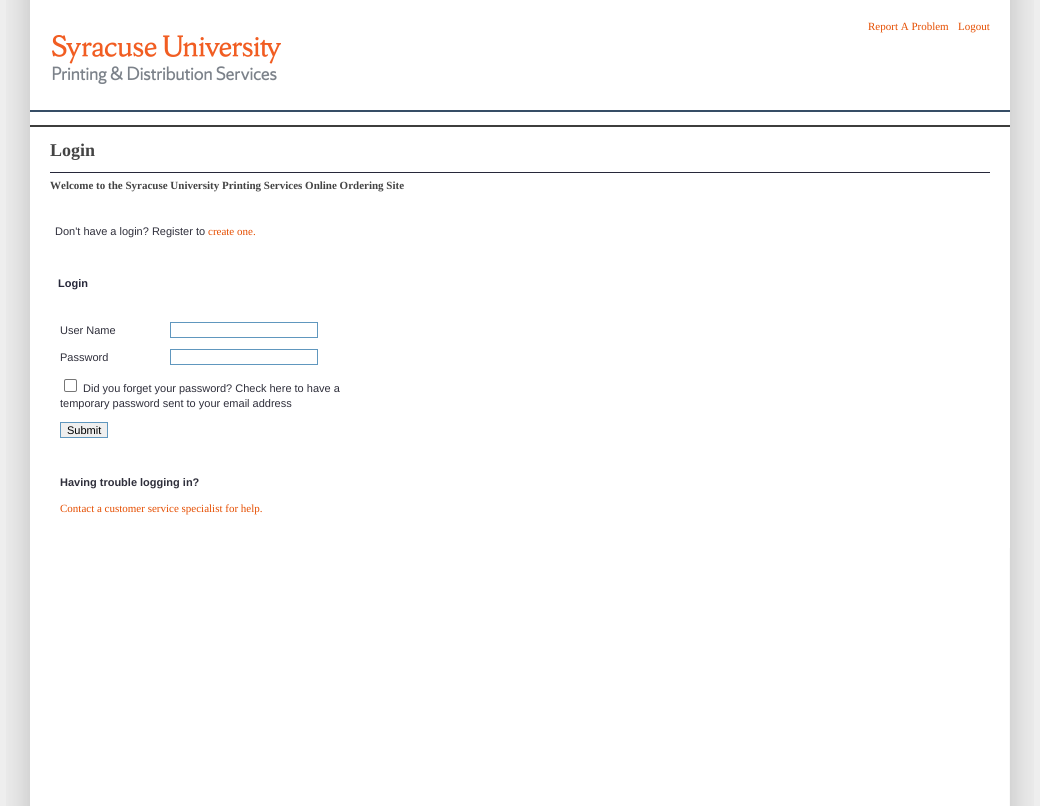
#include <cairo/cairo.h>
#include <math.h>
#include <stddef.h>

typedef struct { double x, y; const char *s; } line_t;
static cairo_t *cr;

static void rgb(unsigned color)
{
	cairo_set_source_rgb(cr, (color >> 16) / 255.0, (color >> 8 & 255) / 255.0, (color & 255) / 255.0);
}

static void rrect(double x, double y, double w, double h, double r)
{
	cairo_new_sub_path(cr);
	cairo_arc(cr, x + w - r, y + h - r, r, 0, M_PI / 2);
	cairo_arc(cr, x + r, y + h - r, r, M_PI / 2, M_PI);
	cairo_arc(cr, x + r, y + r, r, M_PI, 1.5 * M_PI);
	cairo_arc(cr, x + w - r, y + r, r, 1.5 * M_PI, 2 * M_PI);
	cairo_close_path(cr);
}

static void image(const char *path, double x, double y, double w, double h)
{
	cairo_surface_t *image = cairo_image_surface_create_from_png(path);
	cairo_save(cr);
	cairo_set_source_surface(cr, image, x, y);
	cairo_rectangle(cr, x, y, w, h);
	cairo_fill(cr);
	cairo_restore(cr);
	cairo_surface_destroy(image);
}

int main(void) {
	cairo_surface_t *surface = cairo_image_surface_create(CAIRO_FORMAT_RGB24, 1040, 806);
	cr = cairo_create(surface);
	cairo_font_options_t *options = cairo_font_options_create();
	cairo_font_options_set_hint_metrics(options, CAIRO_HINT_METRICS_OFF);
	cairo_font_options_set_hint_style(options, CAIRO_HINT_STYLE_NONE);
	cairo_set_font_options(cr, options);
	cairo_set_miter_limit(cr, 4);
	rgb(0xeeeeee);
	cairo_paint(cr);
	image("img/1.png", 6, 0, 1028, 806);
	rgb(0xffffff);
	cairo_rectangle(cr, 1009, 0, 1, 548);
	cairo_fill(cr);
	rgb(0x364e66);
	cairo_rectangle(cr, 30, 110, 980, 2);
	cairo_fill(cr);
	image("img/2.png", 52, 35, 229, 49);
	rgb(0x3e3d3c);
	cairo_rectangle(cr, 30, 125, 980, 2);
	cairo_fill(cr);
	rgb(0x27283a);
	cairo_rectangle(cr, 50, 172, 940, 1);
	cairo_fill(cr);
	cairo_rectangle(cr, 170.5, 322.5, 147, 15);
	rgb(0x6097be);
	cairo_set_line_width(cr, 1);
	cairo_stroke(cr);
	cairo_rectangle(cr, 170.5, 349.5, 147, 15);
	cairo_stroke(cr);
	rrect(64.5, 379.5, 12, 12, 1.5);
	rgb(0x767676);
	cairo_stroke(cr);
	rgb(0xefefef);
	cairo_rectangle(cr, 60.5, 422.5, 47, 15);
	cairo_fill_preserve(cr);
	rgb(0x6097be);
	cairo_stroke(cr);
	cairo_select_font_face(cr, "Liberation Serif", CAIRO_FONT_SLANT_NORMAL, CAIRO_FONT_WEIGHT_NORMAL);
	cairo_set_font_size(cr, 11);
	rgb(0xe54d00);
	cairo_move_to(cr, 868, 30);
	cairo_show_text(cr, "Report A Problem");
	cairo_move_to(cr, 958, 30);
	cairo_show_text(cr, "Logout");
	cairo_select_font_face(cr, "Liberation Serif", CAIRO_FONT_SLANT_NORMAL, CAIRO_FONT_WEIGHT_BOLD);
	cairo_set_font_size(cr, 18);
	rgb(0x444444);
	cairo_move_to(cr, 50, 156);
	cairo_show_text(cr, "Login");
	cairo_set_font_size(cr, 11);
	cairo_move_to(cr, 50, 189);
	cairo_show_text(cr, "Welcome to the Syracuse University Printing Services Online Ordering Site");
	cairo_select_font_face(cr, "Liberation Sans", CAIRO_FONT_SLANT_NORMAL, CAIRO_FONT_WEIGHT_NORMAL);
	rgb(0x2f2f3b);
	cairo_move_to(cr, 55, 235);
	cairo_show_text(cr, "Don't have a login? Register to");
	cairo_select_font_face(cr, "Liberation Serif", CAIRO_FONT_SLANT_NORMAL, CAIRO_FONT_WEIGHT_NORMAL);
	rgb(0xe54d00);
	cairo_move_to(cr, 208, 235);
	cairo_show_text(cr, "create one.");
	cairo_select_font_face(cr, "Liberation Sans", CAIRO_FONT_SLANT_NORMAL, CAIRO_FONT_WEIGHT_BOLD);
	rgb(0x27283a);
	cairo_move_to(cr, 58, 287);
	cairo_show_text(cr, "Login");
	cairo_select_font_face(cr, "Liberation Sans", CAIRO_FONT_SLANT_NORMAL, CAIRO_FONT_WEIGHT_NORMAL);
	rgb(0x2f2f3b);
	{
		static const line_t items[] = {
			{60, 334, "User Name"},
			{60, 361, "Password"},
			{83, 392, "Did you forget your password? Check here to have a"},
			{60, 407, "temporary password sent to your email address"},
		};
		for (size_t i = 0; i < sizeof items / sizeof *items; i++) {
			cairo_move_to(cr, items[i].x, items[i].y);
			cairo_show_text(cr, items[i].s);
		}
	}
	rgb(0x000000);
	cairo_move_to(cr, 67, 434);
	cairo_show_text(cr, "Submit");
	cairo_select_font_face(cr, "Liberation Sans", CAIRO_FONT_SLANT_NORMAL, CAIRO_FONT_WEIGHT_BOLD);
	rgb(0x2f2f3b);
	cairo_move_to(cr, 60, 486);
	cairo_show_text(cr, "Having trouble logging in?");
	cairo_select_font_face(cr, "Liberation Serif", CAIRO_FONT_SLANT_NORMAL, CAIRO_FONT_WEIGHT_NORMAL);
	rgb(0xe54d00);
	cairo_move_to(cr, 60, 512);
	cairo_show_text(cr, "Contact a customer service specialist for help.");
	cairo_surface_write_to_png(surface, "page.png");
	cairo_font_options_destroy(options);
	cairo_destroy(cr);
	cairo_surface_destroy(surface);
	return 0;
}
